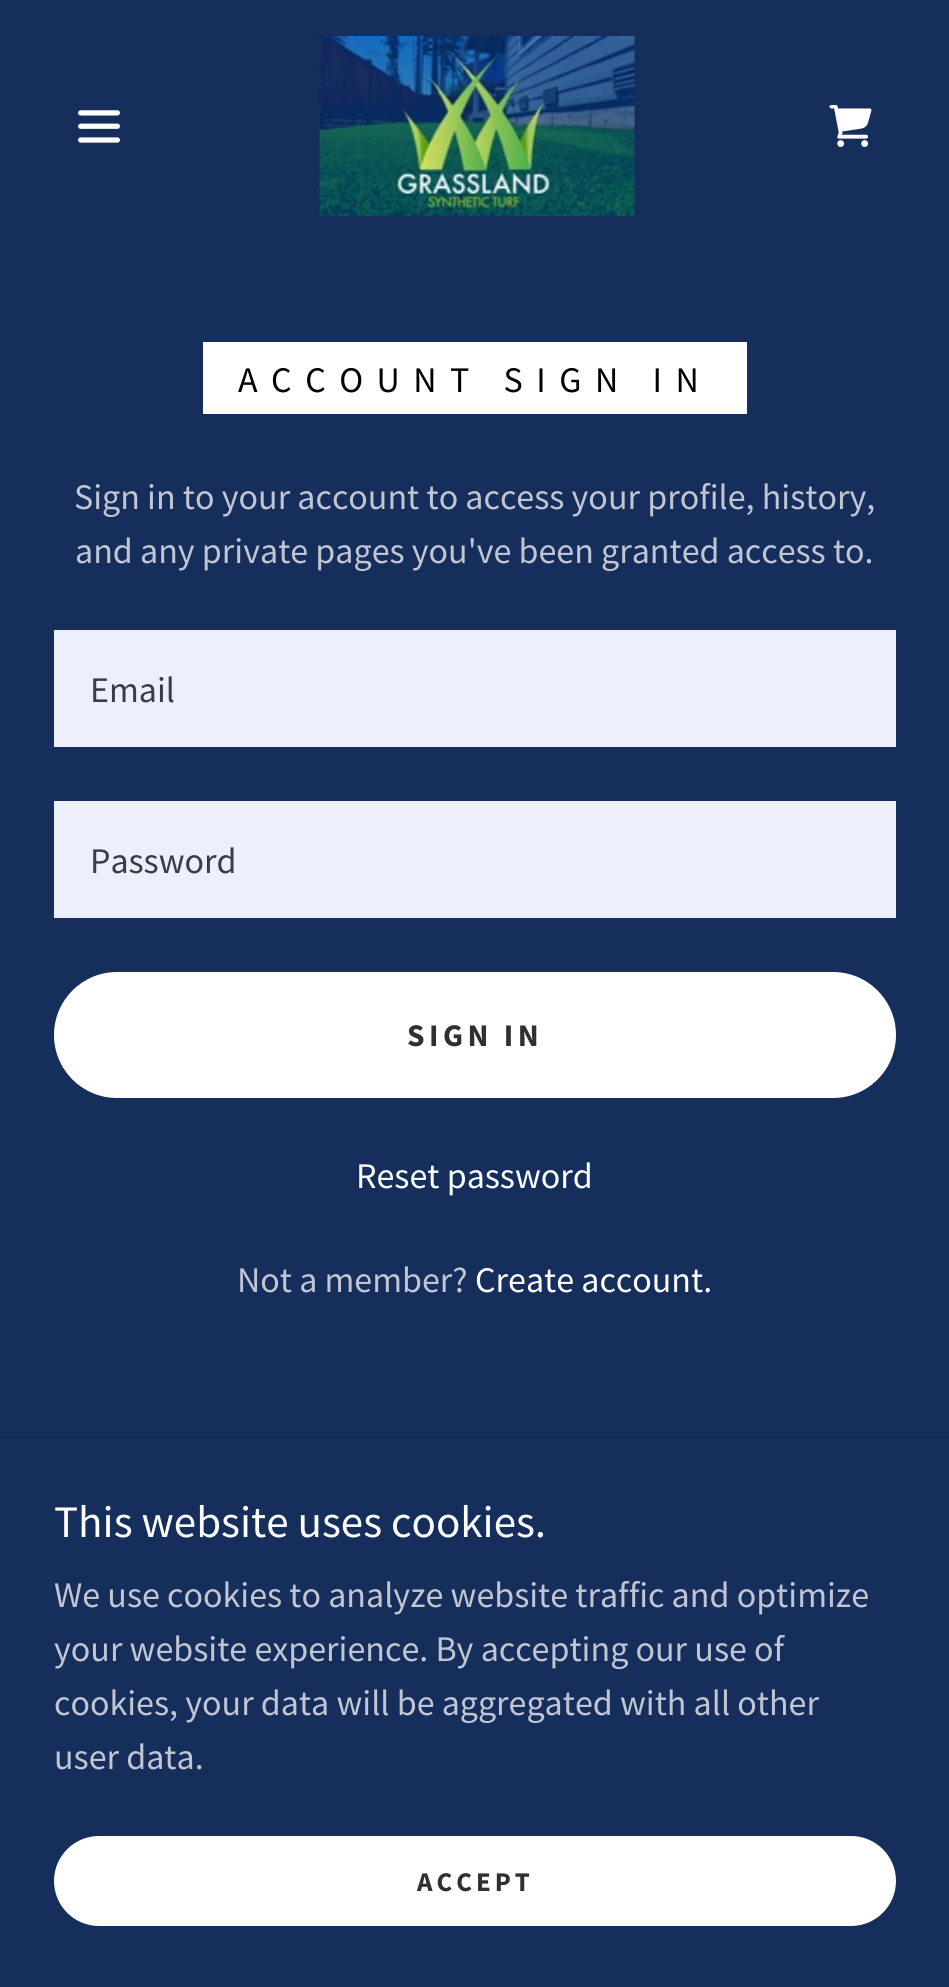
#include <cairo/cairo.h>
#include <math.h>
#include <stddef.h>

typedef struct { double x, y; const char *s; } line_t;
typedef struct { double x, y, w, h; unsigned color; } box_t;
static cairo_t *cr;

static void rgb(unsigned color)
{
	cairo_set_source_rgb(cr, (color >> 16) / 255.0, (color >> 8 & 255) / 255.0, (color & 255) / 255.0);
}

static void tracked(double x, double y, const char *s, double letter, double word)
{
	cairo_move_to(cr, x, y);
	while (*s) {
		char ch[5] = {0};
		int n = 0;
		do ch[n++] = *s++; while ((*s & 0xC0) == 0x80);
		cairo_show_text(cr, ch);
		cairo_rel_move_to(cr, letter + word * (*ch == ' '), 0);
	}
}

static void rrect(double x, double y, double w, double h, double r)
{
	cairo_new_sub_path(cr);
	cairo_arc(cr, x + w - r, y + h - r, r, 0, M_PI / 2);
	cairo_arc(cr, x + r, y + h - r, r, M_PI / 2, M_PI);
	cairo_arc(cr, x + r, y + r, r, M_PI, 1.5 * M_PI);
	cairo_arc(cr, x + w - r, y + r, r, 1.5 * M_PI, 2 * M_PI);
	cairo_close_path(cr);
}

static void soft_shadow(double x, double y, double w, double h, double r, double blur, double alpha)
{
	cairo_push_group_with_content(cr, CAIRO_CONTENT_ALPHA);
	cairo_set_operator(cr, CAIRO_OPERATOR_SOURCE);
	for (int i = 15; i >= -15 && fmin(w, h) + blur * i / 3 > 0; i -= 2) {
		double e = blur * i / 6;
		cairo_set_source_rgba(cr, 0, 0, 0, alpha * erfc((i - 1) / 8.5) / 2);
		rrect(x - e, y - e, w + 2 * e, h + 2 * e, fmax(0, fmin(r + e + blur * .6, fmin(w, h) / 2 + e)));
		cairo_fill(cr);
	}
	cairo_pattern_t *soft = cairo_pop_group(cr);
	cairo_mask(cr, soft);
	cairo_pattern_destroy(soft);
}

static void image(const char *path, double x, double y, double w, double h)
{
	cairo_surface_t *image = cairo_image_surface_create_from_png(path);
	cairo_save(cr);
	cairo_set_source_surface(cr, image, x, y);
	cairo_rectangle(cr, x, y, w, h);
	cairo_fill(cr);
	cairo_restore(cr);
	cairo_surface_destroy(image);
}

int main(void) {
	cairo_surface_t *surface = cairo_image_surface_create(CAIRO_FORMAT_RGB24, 949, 1987);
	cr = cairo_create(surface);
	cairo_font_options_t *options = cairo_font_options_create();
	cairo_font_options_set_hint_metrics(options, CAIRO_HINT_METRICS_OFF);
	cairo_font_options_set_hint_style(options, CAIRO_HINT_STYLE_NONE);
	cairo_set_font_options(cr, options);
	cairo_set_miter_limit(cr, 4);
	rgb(0x162e5c);
	cairo_paint(cr);
	image("img/1.png", 78, 110, 42, 33);
	image("img/2.png", 319, 36, 316, 180);
	image("img/3.png", 829, 105, 43, 42);
	{
		static const box_t items[] = {
			{203, 342, 544, 72, 0xffffff},
			{54, 630, 842, 117, 0xedf0fc},
			{54, 801, 842, 117, 0xedf0fc},
		};
		for (size_t i = 0; i < sizeof items / sizeof *items; i++) {
			rgb(items[i].color);
			cairo_rectangle(cr, items[i].x, items[i].y, items[i].w, items[i].h);
			cairo_fill(cr);
		}
	}
	rgb(0xffffff);
	rrect(54, 972, 842, 126, 63);
	cairo_fill(cr);
	rgb(0x000000);
	soft_shadow(0, 1442, 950, 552, 0, 7, 0.3);
	rgb(0x162e5c);
	cairo_rectangle(cr, 0, 1438, 949, 549);
	cairo_fill(cr);
	rgb(0xffffff);
	rrect(54, 1836, 842, 90, 45);
	cairo_fill(cr);
	cairo_select_font_face(cr, "Source Sans Pro", CAIRO_FONT_SLANT_NORMAL, CAIRO_FONT_WEIGHT_NORMAL);
	cairo_set_font_size(cr, 36);
	rgb(0x000000);
	tracked(238, 392, "ACCOUNT SIGN IN", 13.5, 0);
	rgb(0xc2c5d2);
	cairo_move_to(cr, 74, 509);
	cairo_show_text(cr, "Sign in to your account to access your profile, history,");
	cairo_move_to(cr, 75, 563);
	cairo_show_text(cr, "and any private pages you've been granted access to.");
	rgb(0x373b4a);
	cairo_move_to(cr, 90, 702);
	cairo_show_text(cr, "Email");
	cairo_move_to(cr, 90, 873);
	cairo_show_text(cr, "Password");
	cairo_select_font_face(cr, "Source Sans Pro", CAIRO_FONT_SLANT_NORMAL, CAIRO_FONT_WEIGHT_BOLD);
	cairo_set_font_size(cr, 31.5);
	rgb(0x303030);
	tracked(407, 1046, "SIGN IN", 4.5, 0);
	cairo_select_font_face(cr, "Source Sans Pro", CAIRO_FONT_SLANT_NORMAL, CAIRO_FONT_WEIGHT_NORMAL);
	cairo_set_font_size(cr, 36);
	rgb(0xffffff);
	cairo_move_to(cr, 356, 1188);
	cairo_show_text(cr, "Reset password");
	rgb(0xc2c5d2);
	cairo_move_to(cr, 237, 1292);
	cairo_show_text(cr, "Not a member?");
	rgb(0xffffff);
	cairo_move_to(cr, 475, 1292);
	cairo_show_text(cr, "Create account.");
	cairo_set_font_size(cr, 45);
	cairo_move_to(cr, 54, 1537);
	cairo_show_text(cr, "This website uses cookies.");
	cairo_set_font_size(cr, 36);
	rgb(0xc2c5d2);
	{
		static const line_t items[] = {
			{54, 1607, "We use cookies to analyze website traffic and optimize"},
			{54, 1661, "your website experience. By accepting our use of"},
			{54, 1715, "cookies, your data will be aggregated with all other"},
			{54, 1769, "user data."},
		};
		for (size_t i = 0; i < sizeof items / sizeof *items; i++) {
			cairo_move_to(cr, items[i].x, items[i].y);
			cairo_show_text(cr, items[i].s);
		}
	}
	cairo_select_font_face(cr, "Source Sans Pro", CAIRO_FONT_SLANT_NORMAL, CAIRO_FONT_WEIGHT_BOLD);
	cairo_set_font_size(cr, 27);
	rgb(0x303030);
	tracked(417, 1891, "ACCEPT", 4, 0);
	cairo_surface_write_to_png(surface, "page.png");
	cairo_font_options_destroy(options);
	cairo_destroy(cr);
	cairo_surface_destroy(surface);
	return 0;
}
